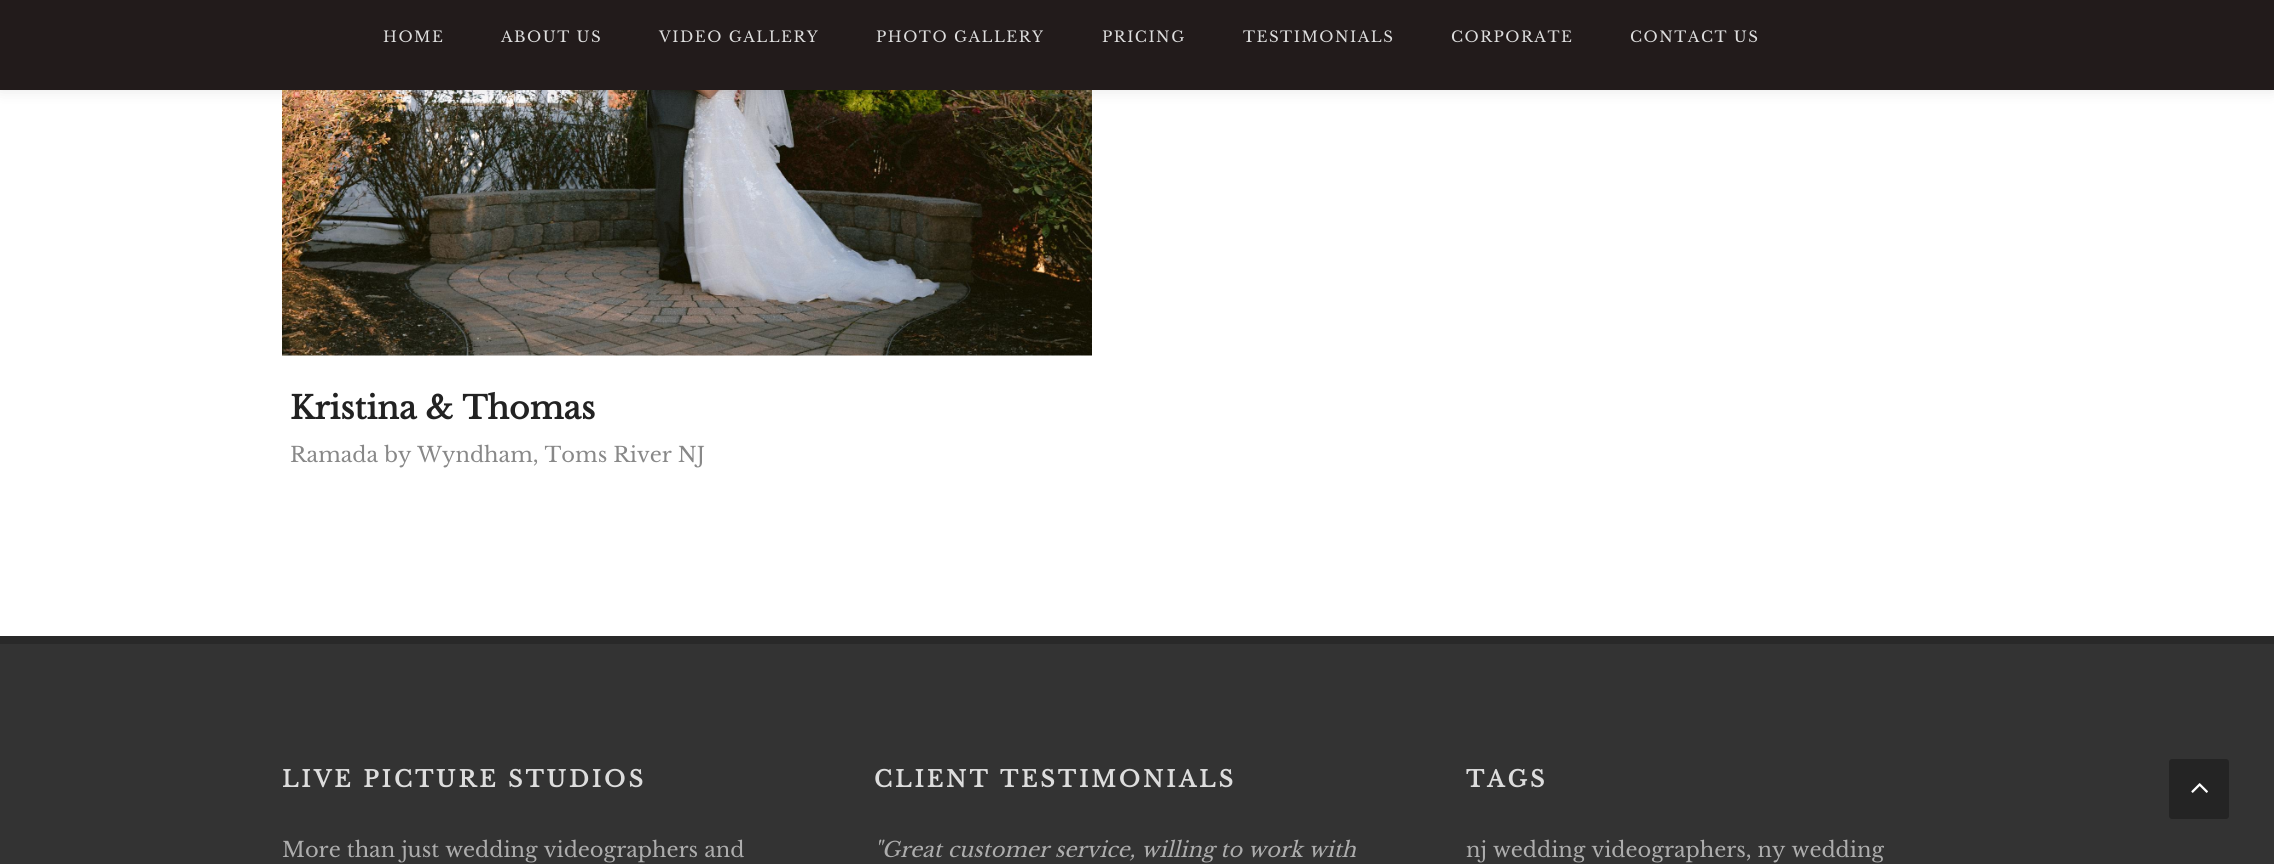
#include <cairo/cairo.h>
#include <math.h>
#include <stddef.h>

typedef struct { double x, y; const char *s; } line_t;
typedef struct { double x, y, w, h; unsigned color; } box_t;
static cairo_t *cr;

static void rgb(unsigned color)
{
	cairo_set_source_rgb(cr, (color >> 16) / 255.0, (color >> 8 & 255) / 255.0, (color & 255) / 255.0);
}

static void tracked(double x, double y, const char *s, double letter, double word)
{
	cairo_move_to(cr, x, y);
	while (*s) {
		char ch[5] = {0};
		int n = 0;
		do ch[n++] = *s++; while ((*s & 0xC0) == 0x80);
		cairo_show_text(cr, ch);
		cairo_rel_move_to(cr, letter + word * (*ch == ' '), 0);
	}
}

static void rrect(double x, double y, double w, double h, double r)
{
	cairo_new_sub_path(cr);
	cairo_arc(cr, x + w - r, y + h - r, r, 0, M_PI / 2);
	cairo_arc(cr, x + r, y + h - r, r, M_PI / 2, M_PI);
	cairo_arc(cr, x + r, y + r, r, M_PI, 1.5 * M_PI);
	cairo_arc(cr, x + w - r, y + r, r, 1.5 * M_PI, 2 * M_PI);
	cairo_close_path(cr);
}

static void soft_shadow(double x, double y, double w, double h, double r, double blur, double alpha)
{
	cairo_push_group_with_content(cr, CAIRO_CONTENT_ALPHA);
	cairo_set_operator(cr, CAIRO_OPERATOR_SOURCE);
	for (int i = 15; i >= -15 && fmin(w, h) + blur * i / 3 > 0; i -= 2) {
		double e = blur * i / 6;
		cairo_set_source_rgba(cr, 0, 0, 0, alpha * erfc((i - 1) / 8.5) / 2);
		rrect(x - e, y - e, w + 2 * e, h + 2 * e, fmax(0, fmin(r + e + blur * .6, fmin(w, h) / 2 + e)));
		cairo_fill(cr);
	}
	cairo_pattern_t *soft = cairo_pop_group(cr);
	cairo_mask(cr, soft);
	cairo_pattern_destroy(soft);
}

static void image(const char *path, double x, double y, double w, double h)
{
	cairo_surface_t *image = cairo_image_surface_create_from_png(path);
	cairo_save(cr);
	cairo_set_source_surface(cr, image, x, y);
	cairo_rectangle(cr, x, y, w, h);
	cairo_fill(cr);
	cairo_restore(cr);
	cairo_surface_destroy(image);
}

int main(void) {
	cairo_surface_t *surface = cairo_image_surface_create(CAIRO_FORMAT_RGB24, 2274, 864);
	cr = cairo_create(surface);
	cairo_font_options_t *options = cairo_font_options_create();
	cairo_font_options_set_hint_metrics(options, CAIRO_HINT_METRICS_OFF);
	cairo_font_options_set_hint_style(options, CAIRO_HINT_STYLE_NONE);
	cairo_set_font_options(cr, options);
	cairo_set_miter_limit(cr, 4);
	rgb(0xffffff);
	cairo_paint(cr);
	image("img/1.png", 282, 90, 810, 266);
	rgb(0x000000);
	soft_shadow(0, 0, 2274, 90, 0, 7.5, 0.1);
	{
		static const box_t items[] = {
			{0, 0, 2274, 90, 0x221b1b},
			{0, 644, 2274, 220, 0x333333},
			{0, 636, 2274, 8, 0x292929},
		};
		for (size_t i = 0; i < sizeof items / sizeof *items; i++) {
			rgb(items[i].color);
			cairo_rectangle(cr, items[i].x, items[i].y, items[i].w, items[i].h);
			cairo_fill(cr);
		}
	}
	rgb(0x242424);
	rrect(2169, 759, 60, 60, 3);
	cairo_fill(cr);
	image("img/2.png", 2191, 783, 17, 10);
	cairo_select_font_face(cr, "Libre Baskerville", CAIRO_FONT_SLANT_NORMAL, CAIRO_FONT_WEIGHT_NORMAL);
	cairo_set_font_size(cr, 15);
	rgb(0xdddddd);
	{
		static const line_t items[] = {
			{383, 42, "HOME"},
			{501, 42, "ABOUT US"},
			{659, 42, "VIDEO GALLERY"},
			{876, 42, "PHOTO GALLERY"},
			{1102, 42, "PRICING"},
			{1243, 42, "TESTIMONIALS"},
			{1451, 42, "CORPORATE"},
			{1630, 42, "CONTACT US"},
		};
		for (size_t i = 0; i < sizeof items / sizeof *items; i++) {
			tracked(items[i].x, items[i].y, items[i].s, 1.5, 0);
		}
	}
	cairo_select_font_face(cr, "Libre Baskerville", CAIRO_FONT_SLANT_NORMAL, CAIRO_FONT_WEIGHT_BOLD);
	cairo_set_font_size(cr, 31.5);
	rgb(0x222222);
	cairo_move_to(cr, 290, 419);
	cairo_show_text(cr, "Kristina & Thomas");
	cairo_select_font_face(cr, "Libre Baskerville", CAIRO_FONT_SLANT_NORMAL, CAIRO_FONT_WEIGHT_NORMAL);
	cairo_set_font_size(cr, 21);
	rgb(0x888888);
	cairo_move_to(cr, 290, 462);
	cairo_show_text(cr, "Ramada by Wyndham, Toms River NJ");
	cairo_select_font_face(cr, "Libre Baskerville", CAIRO_FONT_SLANT_NORMAL, CAIRO_FONT_WEIGHT_BOLD);
	cairo_set_font_size(cr, 22.5);
	rgb(0xdddddd);
	tracked(282, 787, "LIVE PICTURE STUDIOS", 3, 0);
	cairo_select_font_face(cr, "Libre Baskerville", CAIRO_FONT_SLANT_NORMAL, CAIRO_FONT_WEIGHT_NORMAL);
	cairo_set_font_size(cr, 21);
	rgb(0xadadad);
	cairo_move_to(cr, 282, 857);
	cairo_show_text(cr, "More than just wedding videographers and");
	cairo_select_font_face(cr, "Libre Baskerville", CAIRO_FONT_SLANT_NORMAL, CAIRO_FONT_WEIGHT_BOLD);
	cairo_set_font_size(cr, 22.5);
	rgb(0xdddddd);
	tracked(874, 787, "CLIENT TESTIMONIALS", 3, 0);
	cairo_select_font_face(cr, "Libre Baskerville", CAIRO_FONT_SLANT_ITALIC, CAIRO_FONT_WEIGHT_NORMAL);
	cairo_set_font_size(cr, 21);
	rgb(0xadadad);
	cairo_move_to(cr, 874, 857);
	cairo_show_text(cr, "\"Great customer service, willing to work with");
	cairo_select_font_face(cr, "Libre Baskerville", CAIRO_FONT_SLANT_NORMAL, CAIRO_FONT_WEIGHT_BOLD);
	cairo_set_font_size(cr, 22.5);
	rgb(0xdddddd);
	tracked(1466, 787, "TAGS", 3, 0);
	cairo_select_font_face(cr, "Libre Baskerville", CAIRO_FONT_SLANT_NORMAL, CAIRO_FONT_WEIGHT_NORMAL);
	cairo_set_font_size(cr, 21);
	rgb(0xadadad);
	cairo_move_to(cr, 1466, 857);
	cairo_show_text(cr, "nj wedding videographers, ny wedding");
	cairo_surface_write_to_png(surface, "page.png");
	cairo_font_options_destroy(options);
	cairo_destroy(cr);
	cairo_surface_destroy(surface);
	return 0;
}
